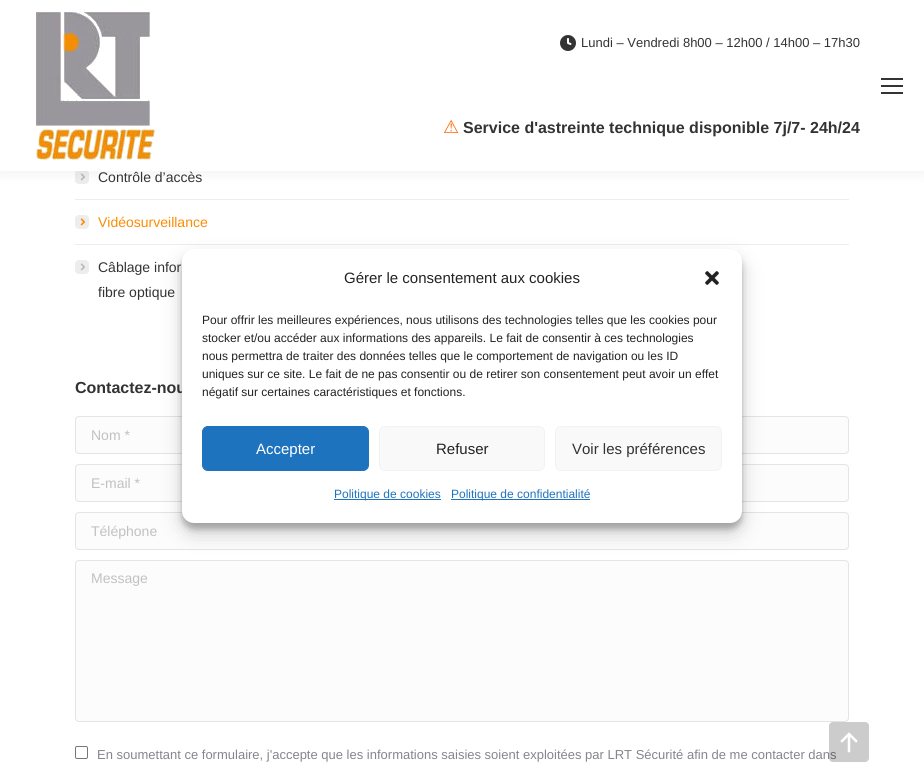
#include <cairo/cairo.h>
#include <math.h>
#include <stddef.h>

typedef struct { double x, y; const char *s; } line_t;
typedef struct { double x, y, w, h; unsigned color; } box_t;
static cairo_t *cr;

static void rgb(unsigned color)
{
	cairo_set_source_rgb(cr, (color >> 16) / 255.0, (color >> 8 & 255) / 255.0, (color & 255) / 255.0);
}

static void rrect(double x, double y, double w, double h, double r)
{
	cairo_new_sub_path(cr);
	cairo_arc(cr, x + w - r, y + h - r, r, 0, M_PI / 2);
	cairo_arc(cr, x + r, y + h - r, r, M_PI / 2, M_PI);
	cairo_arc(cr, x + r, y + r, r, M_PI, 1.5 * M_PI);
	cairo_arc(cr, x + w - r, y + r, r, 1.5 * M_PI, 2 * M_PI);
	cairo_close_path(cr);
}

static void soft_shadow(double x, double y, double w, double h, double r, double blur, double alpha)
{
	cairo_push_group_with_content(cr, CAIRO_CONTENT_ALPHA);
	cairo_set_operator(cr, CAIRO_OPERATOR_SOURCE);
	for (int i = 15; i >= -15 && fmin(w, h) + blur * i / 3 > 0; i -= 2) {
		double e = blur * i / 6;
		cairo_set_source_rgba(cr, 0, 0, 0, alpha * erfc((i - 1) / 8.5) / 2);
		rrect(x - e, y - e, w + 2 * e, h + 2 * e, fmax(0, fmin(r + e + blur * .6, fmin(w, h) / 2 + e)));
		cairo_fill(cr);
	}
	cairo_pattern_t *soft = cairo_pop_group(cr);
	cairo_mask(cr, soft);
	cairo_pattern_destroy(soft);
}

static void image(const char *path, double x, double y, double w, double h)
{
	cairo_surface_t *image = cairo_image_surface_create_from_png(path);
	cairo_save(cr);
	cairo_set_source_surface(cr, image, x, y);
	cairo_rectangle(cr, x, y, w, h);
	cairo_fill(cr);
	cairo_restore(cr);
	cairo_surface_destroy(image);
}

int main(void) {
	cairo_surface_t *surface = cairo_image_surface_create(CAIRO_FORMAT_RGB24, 924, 772);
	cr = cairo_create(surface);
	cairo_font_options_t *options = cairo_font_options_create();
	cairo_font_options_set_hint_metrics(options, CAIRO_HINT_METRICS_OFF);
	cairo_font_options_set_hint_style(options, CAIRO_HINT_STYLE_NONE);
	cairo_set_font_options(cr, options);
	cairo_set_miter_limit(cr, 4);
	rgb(0xffffff);
	cairo_paint(cr);
	rgb(0xededee);
	rrect(75, 170, 14, 14, 4);
	cairo_fill(cr);
	image("img/3.png", 80, 173, 5, 8);
	rgb(0x000000);
	soft_shadow(-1, -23, 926, 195, 0, 7.5, 0.07);
	rgb(0xffffff);
	cairo_rectangle(cr, 0, 0, 924, 171);
	cairo_fill(cr);
	image("img/1.png", 36, 12, 119, 148);
	image("img/2.png", 560, 35, 16, 16);
	{
		static const box_t items[] = {
			{881, 78, 22, 2, 0x333333},
			{881, 85, 22, 2, 0x333333},
			{881, 92, 22, 2, 0x333333},
			{75, 199, 774, 1, 0xededee},
		};
		for (size_t i = 0; i < sizeof items / sizeof *items; i++) {
			rgb(items[i].color);
			cairo_rectangle(cr, items[i].x, items[i].y, items[i].w, items[i].h);
			cairo_fill(cr);
		}
	}
	rrect(75, 215, 14, 14, 4);
	cairo_fill(cr);
	image("img/4.png", 80, 218, 6, 8);
	cairo_rectangle(cr, 75, 244, 774, 1);
	cairo_fill(cr);
	rrect(75, 260, 14, 14, 4);
	cairo_fill(cr);
	image("img/3.png", 80, 263, 5, 8);
	rgb(0xfcfcfc);
	rrect(75.5, 416.5, 773, 37, 3.5);
	cairo_fill_preserve(cr);
	rgb(0xe4e4e4);
	cairo_set_line_width(cr, 1);
	cairo_stroke(cr);
	rgb(0xfcfcfc);
	rrect(75.5, 464.5, 773, 37, 3.5);
	cairo_fill_preserve(cr);
	rgb(0xe4e4e4);
	cairo_stroke(cr);
	rgb(0xfcfcfc);
	rrect(75.5, 512.5, 773, 37, 3.5);
	cairo_fill_preserve(cr);
	rgb(0xe4e4e4);
	cairo_stroke(cr);
	rgb(0xfcfcfc);
	rrect(75.5, 560.5, 773, 161, 3.5);
	cairo_fill_preserve(cr);
	rgb(0xe4e4e4);
	cairo_stroke(cr);
	rrect(75.5, 746.5, 12, 12, 1.5);
	rgb(0x767676);
	cairo_stroke(cr);
	rgb(0x000000);
	soft_shadow(182, 255, 560, 274, 12, 3, 0.23);
	soft_shadow(182, 259, 560, 274, 12, 10, 0.19);
	cairo_select_font_face(cr, "Liberation Sans", CAIRO_FONT_SLANT_NORMAL, CAIRO_FONT_WEIGHT_NORMAL);
	cairo_set_font_size(cr, 13);
	rgb(0x333333);
	cairo_move_to(cr, 581, 47);
	cairo_show_text(cr, "Lundi – Vendredi 8h00 – 12h00 / 14h00 – 17h30");
	cairo_select_font_face(cr, "DejaVu Sans", CAIRO_FONT_SLANT_NORMAL, CAIRO_FONT_WEIGHT_NORMAL);
	cairo_set_font_size(cr, 18);
	rgb(0xff6600);
	cairo_move_to(cr, 443, 133);
	cairo_show_text(cr, "⚠");
	cairo_select_font_face(cr, "Liberation Sans", CAIRO_FONT_SLANT_NORMAL, CAIRO_FONT_WEIGHT_BOLD);
	cairo_set_font_size(cr, 16);
	rgb(0x333333);
	cairo_move_to(cr, 463, 133);
	cairo_show_text(cr, "Service d'astreinte technique disponible 7j/7- 24h/24");
	cairo_select_font_face(cr, "Liberation Sans", CAIRO_FONT_SLANT_NORMAL, CAIRO_FONT_WEIGHT_NORMAL);
	cairo_set_font_size(cr, 14);
	cairo_move_to(cr, 98, 182);
	cairo_show_text(cr, "Contrôle d’accès");
	rgb(0xfc8c02);
	cairo_move_to(cr, 98, 227);
	cairo_show_text(cr, "Vidéosurveillance");
	rgb(0x333333);
	cairo_move_to(cr, 98, 272);
	cairo_show_text(cr, "Câblage infor");
	cairo_move_to(cr, 98, 297);
	cairo_show_text(cr, "fibre optique");
	cairo_select_font_face(cr, "Liberation Sans", CAIRO_FONT_SLANT_NORMAL, CAIRO_FONT_WEIGHT_BOLD);
	cairo_set_font_size(cr, 16);
	cairo_move_to(cr, 75, 393);
	cairo_show_text(cr, "Contactez-nou");
	cairo_select_font_face(cr, "Liberation Sans", CAIRO_FONT_SLANT_NORMAL, CAIRO_FONT_WEIGHT_NORMAL);
	cairo_set_font_size(cr, 14);
	rgb(0xc1c1c4);
	{
		static const line_t items[] = {
			{91, 440, "Nom *"},
			{91, 488, "E-mail *"},
			{91, 536, "Téléphone"},
			{91, 583, "Message"},
		};
		for (size_t i = 0; i < sizeof items / sizeof *items; i++) {
			cairo_move_to(cr, items[i].x, items[i].y);
			cairo_show_text(cr, items[i].s);
		}
	}
	cairo_set_font_size(cr, 13);
	rgb(0x85868c);
	cairo_move_to(cr, 97, 759);
	cairo_show_text(cr, "En soumettant ce formulaire, j'accepte que les informations saisies soient exploitées par LRT Sécurité afin de me contacter dans");
	cairo_set_source_rgba(cr, 0, 0, 0, 0.2);
	rrect(829, 722, 40, 40, 4);
	cairo_fill(cr);
	image("img/5.png", 840, 732, 18, 21);
	rgb(0xffffff);
	rrect(182, 249, 560, 274, 12);
	cairo_fill(cr);
	cairo_set_font_size(cr, 15);
	rgb(0x222222);
	cairo_move_to(cr, 344, 283);
	cairo_show_text(cr, "Gérer le consentement aux cookies");
	image("img/6.png", 705, 271, 14, 14);
	cairo_set_font_size(cr, 12);
	{
		static const line_t items[] = {
			{202, 324, "Pour offrir les meilleures expériences, nous utilisons des technologies telles que les cookies pour"},
			{202, 342, "stocker et/ou accéder aux informations des appareils. Le fait de consentir à ces technologies"},
			{202, 360, "nous permettra de traiter des données telles que le comportement de navigation ou les ID"},
			{202, 378, "uniques sur ce site. Le fait de ne pas consentir ou de retirer son consentement peut avoir un effet"},
			{202, 396, "négatif sur certaines caractéristiques et fonctions."},
		};
		for (size_t i = 0; i < sizeof items / sizeof *items; i++) {
			cairo_move_to(cr, items[i].x, items[i].y);
			cairo_show_text(cr, items[i].s);
		}
	}
	rgb(0x1e73be);
	rrect(202.5, 426.5, 166, 44, 5.5);
	cairo_fill_preserve(cr);
	cairo_stroke(cr);
	cairo_set_font_size(cr, 15);
	rgb(0xffffff);
	cairo_move_to(cr, 256, 454);
	cairo_show_text(cr, "Accepter");
	rgb(0xf9f9f9);
	rrect(379.5, 426.5, 165, 44, 5.5);
	cairo_fill_preserve(cr);
	rgb(0xf2f2f2);
	cairo_stroke(cr);
	rgb(0x222222);
	cairo_move_to(cr, 436, 454);
	cairo_show_text(cr, "Refuser");
	rgb(0xf9f9f9);
	rrect(555.5, 426.5, 166, 44, 5.5);
	cairo_fill_preserve(cr);
	rgb(0xf2f2f2);
	cairo_stroke(cr);
	rgb(0x333333);
	cairo_move_to(cr, 572, 454);
	cairo_show_text(cr, "Voir les préférences");
	rgb(0x1e73be);
	cairo_rectangle(cr, 334, 499, 107, 1);
	cairo_fill(cr);
	cairo_set_font_size(cr, 12);
	cairo_move_to(cr, 334, 498);
	cairo_show_text(cr, "Politique de cookies");
	cairo_rectangle(cr, 451, 499, 139, 1);
	cairo_fill(cr);
	cairo_move_to(cr, 451, 498);
	cairo_show_text(cr, "Politique de confidentialité");
	cairo_surface_write_to_png(surface, "page.png");
	cairo_font_options_destroy(options);
	cairo_destroy(cr);
	cairo_surface_destroy(surface);
	return 0;
}
